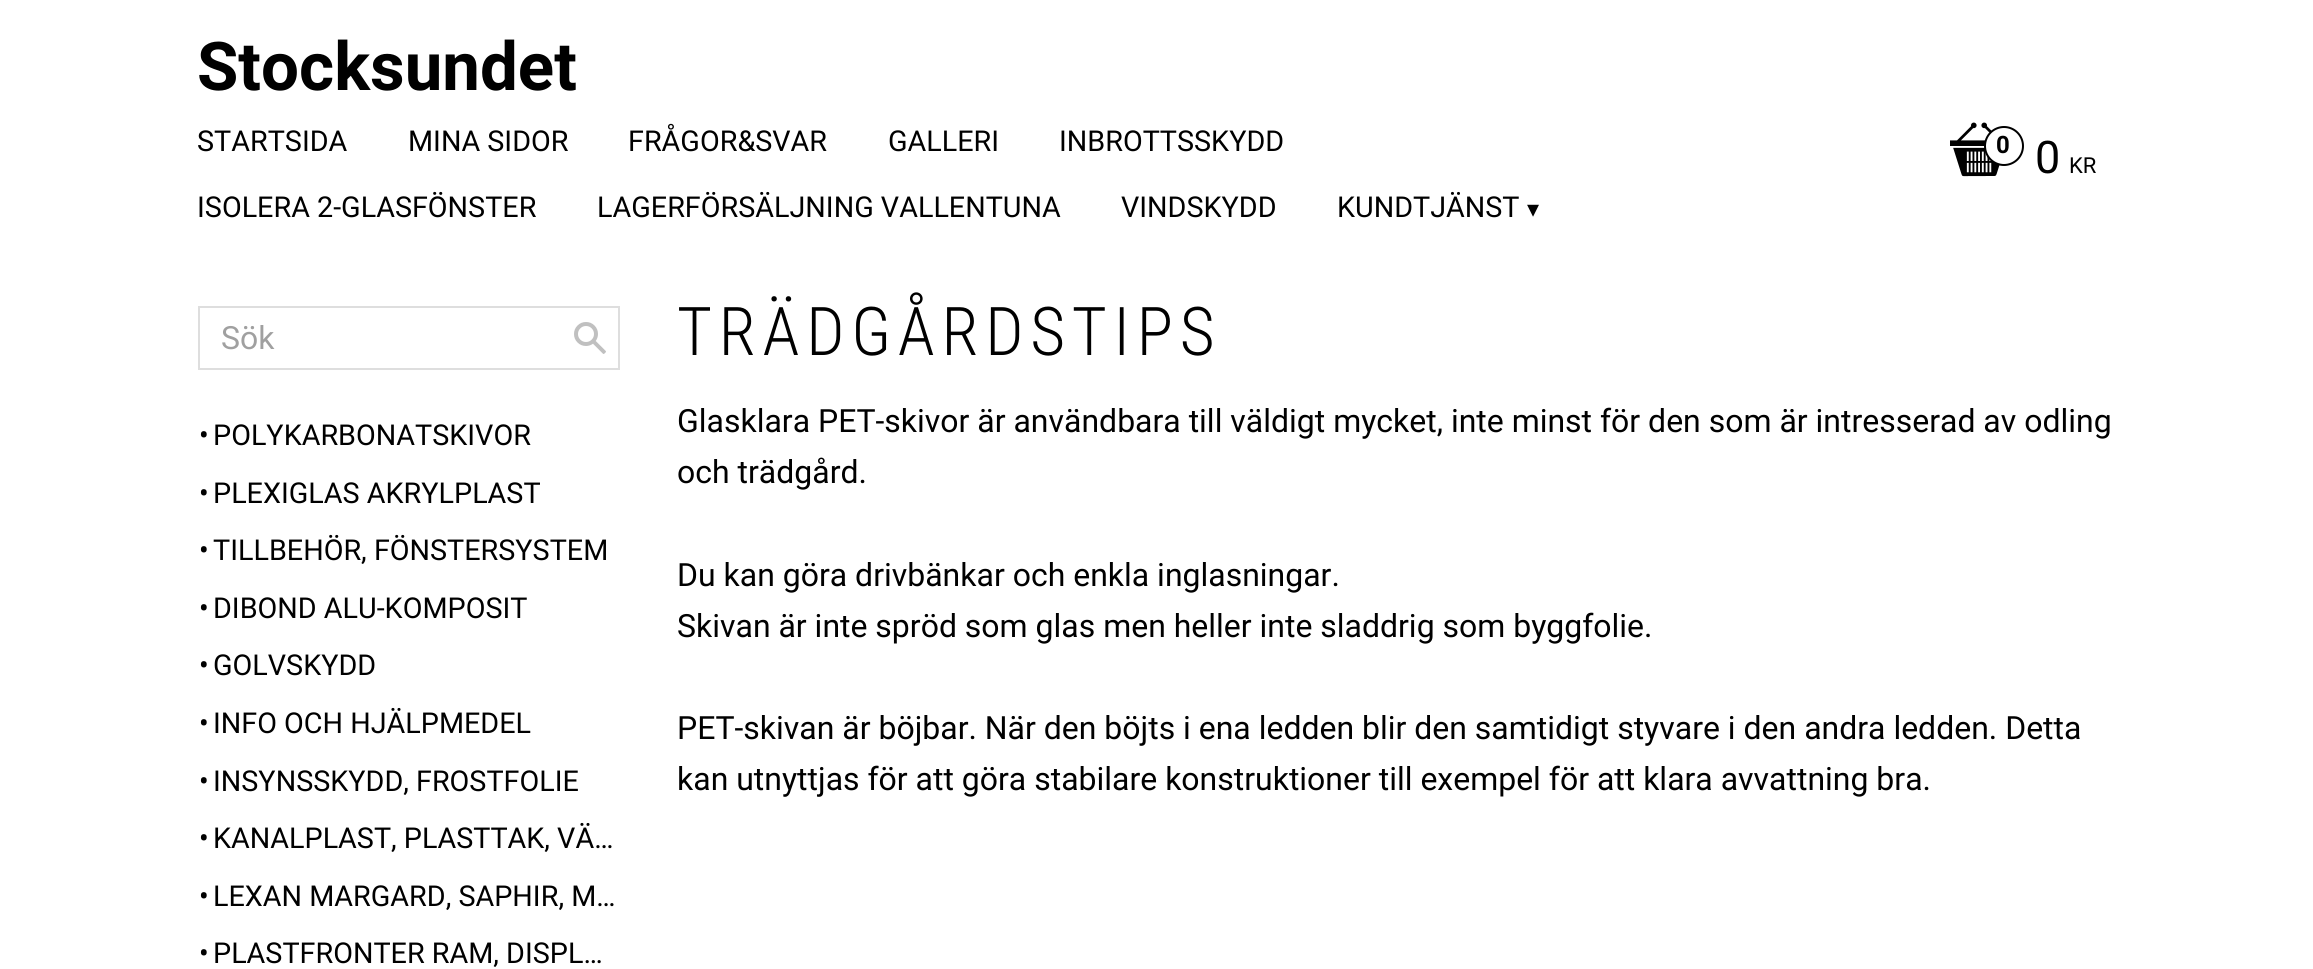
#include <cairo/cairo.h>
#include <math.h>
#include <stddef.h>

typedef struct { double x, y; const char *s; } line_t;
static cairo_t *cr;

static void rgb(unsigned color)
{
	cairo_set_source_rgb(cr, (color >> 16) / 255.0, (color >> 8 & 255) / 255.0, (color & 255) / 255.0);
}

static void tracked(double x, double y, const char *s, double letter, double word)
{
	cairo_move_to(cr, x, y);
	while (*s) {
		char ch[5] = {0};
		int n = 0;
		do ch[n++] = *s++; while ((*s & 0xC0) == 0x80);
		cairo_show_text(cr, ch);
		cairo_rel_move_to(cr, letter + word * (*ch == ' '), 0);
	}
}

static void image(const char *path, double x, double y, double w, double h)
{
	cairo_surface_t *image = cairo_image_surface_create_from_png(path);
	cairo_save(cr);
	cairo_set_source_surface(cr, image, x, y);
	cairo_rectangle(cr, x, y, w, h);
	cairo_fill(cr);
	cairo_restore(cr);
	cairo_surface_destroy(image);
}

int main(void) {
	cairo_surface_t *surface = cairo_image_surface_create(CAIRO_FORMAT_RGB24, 2313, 969);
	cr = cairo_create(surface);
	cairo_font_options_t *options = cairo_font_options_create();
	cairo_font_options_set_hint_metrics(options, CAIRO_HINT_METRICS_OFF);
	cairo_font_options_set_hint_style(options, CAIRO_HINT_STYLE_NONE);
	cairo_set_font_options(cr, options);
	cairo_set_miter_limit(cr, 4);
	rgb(0xffffff);
	cairo_paint(cr);
	image("img/1.png", 1950, 122, 50, 55);
	rgb(0xffffff);
	cairo_arc(cr, 2004, 146, 19, 0, 2 * M_PI);
	cairo_fill_preserve(cr);
	rgb(0x000000);
	cairo_stroke(cr);
	cairo_rectangle(cr, 199, 307, 420, 62);
	rgb(0xdedede);
	cairo_stroke(cr);
	image("img/2.png", 574, 322, 32, 32);
	cairo_select_font_face(cr, "Roboto", CAIRO_FONT_SLANT_NORMAL, CAIRO_FONT_WEIGHT_BOLD);
	cairo_set_font_size(cr, 67.25);
	rgb(0x000000);
	cairo_move_to(cr, 197, 90);
	cairo_show_text(cr, "Stocksundet");
	cairo_select_font_face(cr, "Roboto", CAIRO_FONT_SLANT_NORMAL, CAIRO_FONT_WEIGHT_NORMAL);
	cairo_set_font_size(cr, 28.75);
	{
		static const line_t items[] = {
			{197, 151, "STARTSIDA"},
			{408, 151, "MINA SIDOR"},
			{628, 151, "FRÅGOR&SVAR"},
			{888, 151, "GALLERI"},
			{1059, 151, "INBROTTSSKYDD"},
			{197, 217, "ISOLERA 2-GLASFÖNSTER"},
			{597, 217, "LAGERFÖRSÄLJNING VALLENTUNA"},
			{1121, 217, "VINDSKYDD"},
			{1337, 217, "KUNDTJÄNST"},
		};
		for (size_t i = 0; i < sizeof items / sizeof *items; i++) {
			cairo_move_to(cr, items[i].x, items[i].y);
			cairo_show_text(cr, items[i].s);
		}
	}
	cairo_select_font_face(cr, "DejaVu Sans", CAIRO_FONT_SLANT_NORMAL, CAIRO_FONT_WEIGHT_NORMAL);
	cairo_set_font_size(cr, 24);
	cairo_move_to(cr, 1527, 217);
	cairo_show_text(cr, "▾");
	cairo_select_font_face(cr, "Roboto", CAIRO_FONT_SLANT_NORMAL, CAIRO_FONT_WEIGHT_BOLD);
	cairo_move_to(cr, 1996, 153);
	cairo_show_text(cr, "0");
	cairo_select_font_face(cr, "Roboto", CAIRO_FONT_SLANT_NORMAL, CAIRO_FONT_WEIGHT_NORMAL);
	cairo_set_font_size(cr, 45);
	cairo_move_to(cr, 2035, 173);
	cairo_show_text(cr, "0");
	cairo_set_font_size(cr, 22);
	cairo_move_to(cr, 2069, 173);
	cairo_show_text(cr, "KR");
	cairo_set_font_size(cr, 32);
	rgb(0xa0a0a0);
	cairo_move_to(cr, 221, 349);
	cairo_show_text(cr, "Sök");
	cairo_set_font_size(cr, 28.75);
	rgb(0x000000);
	{
		static const line_t items[] = {
			{199, 445, "•"},
			{213, 445, "POLYKARBONATSKIVOR"},
			{199, 503, "•"},
			{213, 503, "PLEXIGLAS AKRYLPLAST"},
			{199, 560, "•"},
			{213, 560, "TILLBEHÖR, FÖNSTERSYSTEM"},
			{199, 618, "•"},
			{213, 618, "DIBOND ALU-KOMPOSIT"},
			{199, 675, "•"},
			{213, 675, "GOLVSKYDD"},
			{199, 733, "•"},
			{213, 733, "INFO OCH HJÄLPMEDEL"},
			{199, 791, "•"},
			{213, 791, "INSYNSSKYDD, FROSTFOLIE"},
			{199, 848, "•"},
			{213, 848, "KANALPLAST, PLASTTAK, VÄ…"},
			{199, 906, "•"},
			{213, 906, "LEXAN MARGARD, SAPHIR, M…"},
			{199, 963, "•"},
			{213, 963, "PLASTFRONTER RAM, DISPL…"},
		};
		for (size_t i = 0; i < sizeof items / sizeof *items; i++) {
			cairo_move_to(cr, items[i].x, items[i].y);
			cairo_show_text(cr, items[i].s);
		}
	}
	cairo_select_font_face(cr, "Roboto Condensed Light", CAIRO_FONT_SLANT_NORMAL, CAIRO_FONT_WEIGHT_NORMAL);
	cairo_set_font_size(cr, 67.25);
	tracked(677, 355, "TRÄDGÅRDSTIPS", 6.75, 0);
	cairo_select_font_face(cr, "Roboto", CAIRO_FONT_SLANT_NORMAL, CAIRO_FONT_WEIGHT_NORMAL);
	cairo_set_font_size(cr, 32);
	{
		static const line_t items[] = {
			{677, 432, "Glasklara PET-skivor är användbara till väldigt mycket, inte minst för den som är intresserad av odling"},
			{677, 483, "och trädgård."},
			{677, 586, "Du kan göra drivbänkar och enkla inglasningar."},
			{677, 637, "Skivan är inte spröd som glas men heller inte sladdrig som byggfolie."},
			{677, 739, "PET-skivan är böjbar. När den böjts i ena ledden blir den samtidigt styvare i den andra ledden. Detta"},
			{677, 790, "kan utnyttjas för att göra stabilare konstruktioner till exempel för att klara avvattning bra."},
		};
		for (size_t i = 0; i < sizeof items / sizeof *items; i++) {
			cairo_move_to(cr, items[i].x, items[i].y);
			cairo_show_text(cr, items[i].s);
		}
	}
	cairo_surface_write_to_png(surface, "page.png");
	cairo_font_options_destroy(options);
	cairo_destroy(cr);
	cairo_surface_destroy(surface);
	return 0;
}
